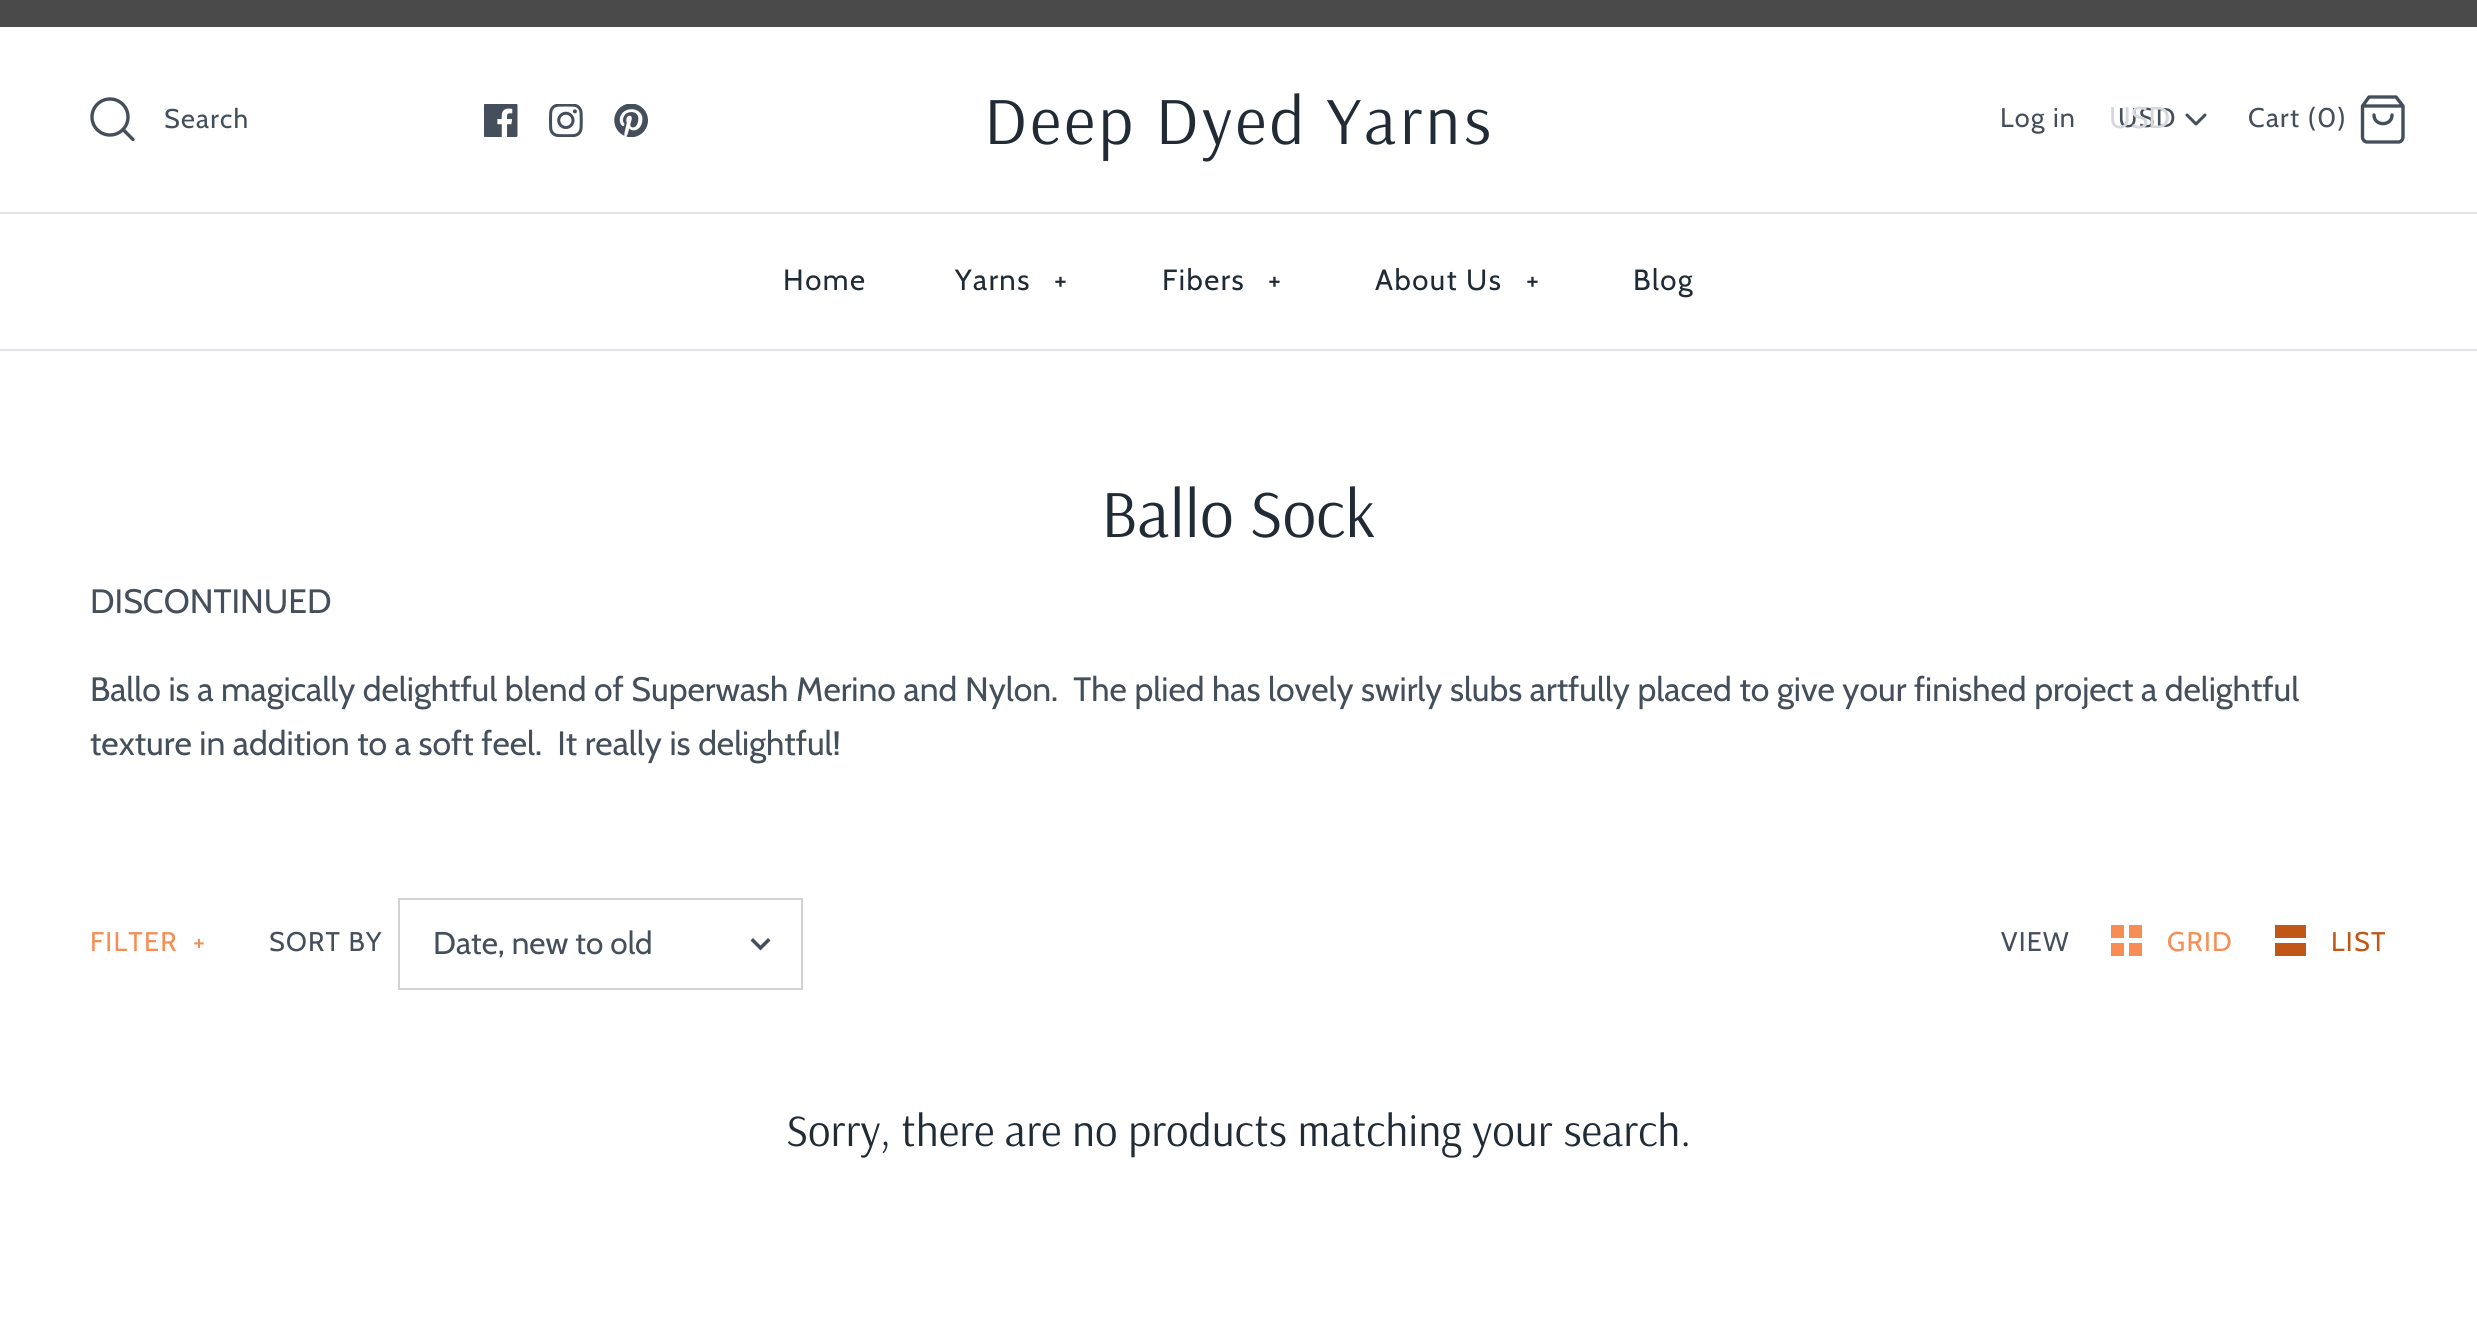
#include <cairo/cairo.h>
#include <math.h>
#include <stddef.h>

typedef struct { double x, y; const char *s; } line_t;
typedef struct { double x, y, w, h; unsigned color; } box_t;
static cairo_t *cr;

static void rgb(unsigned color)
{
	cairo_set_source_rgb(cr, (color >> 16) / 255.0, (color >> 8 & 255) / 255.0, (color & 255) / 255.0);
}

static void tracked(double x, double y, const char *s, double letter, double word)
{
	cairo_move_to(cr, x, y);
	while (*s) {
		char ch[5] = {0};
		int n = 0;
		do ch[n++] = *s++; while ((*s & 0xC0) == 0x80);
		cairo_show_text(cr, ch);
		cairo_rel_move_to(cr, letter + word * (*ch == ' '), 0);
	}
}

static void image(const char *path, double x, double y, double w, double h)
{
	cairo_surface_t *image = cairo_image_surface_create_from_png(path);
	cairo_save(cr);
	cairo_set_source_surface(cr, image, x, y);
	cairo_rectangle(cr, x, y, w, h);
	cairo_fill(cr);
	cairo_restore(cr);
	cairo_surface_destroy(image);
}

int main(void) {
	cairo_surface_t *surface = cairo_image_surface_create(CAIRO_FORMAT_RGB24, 2477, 1335);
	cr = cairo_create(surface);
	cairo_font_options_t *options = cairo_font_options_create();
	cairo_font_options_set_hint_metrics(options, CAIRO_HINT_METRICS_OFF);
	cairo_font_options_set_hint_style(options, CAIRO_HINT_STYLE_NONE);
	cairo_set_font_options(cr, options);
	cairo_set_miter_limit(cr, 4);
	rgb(0xffffff);
	cairo_paint(cr);
	rgb(0x4a4a4a);
	cairo_rectangle(cr, 0, 0, 2477, 27);
	cairo_fill(cr);
	cairo_arc(cr, 110, 117, 18, 0, 2 * M_PI);
	rgb(0x454f5b);
	cairo_set_line_width(cr, 3.4);
	cairo_stroke(cr);
	cairo_new_path(cr);
	cairo_move_to(cr, 133, 139.5);
	cairo_line_to(cr, 123, 129.5);
	cairo_set_line_cap(cr, CAIRO_LINE_CAP_ROUND);
	cairo_set_line_join(cr, CAIRO_LINE_JOIN_ROUND);
	cairo_stroke(cr);
	image("img/1.png", 484, 104, 34, 33);
	image("img/2.png", 549, 104, 34, 33);
	image("img/3.png", 614, 104, 34, 33);
	cairo_new_path(cr);
	cairo_move_to(cr, 2187, 115);
	cairo_line_to(cr, 2196, 124);
	cairo_line_to(cr, 2205, 115);
	cairo_set_line_width(cr, 3);
	cairo_stroke(cr);
	cairo_new_path(cr);
	cairo_move_to(cr, 2369, 97);
	cairo_line_to(cr, 2362.5, 106);
	cairo_line_to(cr, 2362.5, 137);
	cairo_curve_to(cr, 2362.5, 139.5, 2364.5, 142, 2367, 142);
	cairo_line_to(cr, 2398.5, 142);
	cairo_curve_to(cr, 2401, 142, 2403, 139.5, 2403, 137);
	cairo_line_to(cr, 2403, 106);
	cairo_line_to(cr, 2396, 97);
	cairo_close_path(cr);
	cairo_move_to(cr, 2362.5, 106);
	cairo_line_to(cr, 2403, 106);
	cairo_move_to(cr, 2392, 115);
	cairo_curve_to(cr, 2392, 126.5, 2374, 126.5, 2374, 115);
	cairo_set_line_width(cr, 3.4);
	cairo_stroke(cr);
	rgb(0xdfe3e8);
	cairo_rectangle(cr, 0, 349, 2477, 2);
	cairo_fill(cr);
	cairo_rectangle(cr, 0, 212, 2477, 2);
	cairo_fill(cr);
	cairo_rectangle(cr, 399, 899, 403, 90);
	rgb(0xd0d3d6);
	cairo_set_line_width(cr, 2);
	cairo_set_line_cap(cr, CAIRO_LINE_CAP_BUTT);
	cairo_set_line_join(cr, CAIRO_LINE_JOIN_MITER);
	cairo_stroke(cr);
	rgb(0x454f5b);
	cairo_new_path(cr);
	cairo_move_to(cr, 753, 938);
	cairo_line_to(cr, 760.5, 945.5);
	cairo_line_to(cr, 768, 938);
	cairo_line_to(cr, 770.5, 940.5);
	cairo_line_to(cr, 760.5, 950.5);
	cairo_line_to(cr, 750.5, 940.5);
	cairo_close_path(cr);
	cairo_fill(cr);
	{
		static const box_t items[] = {
			{2111, 925, 13, 13, 0xf78d54},
			{2129, 925, 13, 13, 0xf78d54},
			{2111, 943, 13, 13, 0xf78d54},
			{2129, 943, 13, 13, 0xf78d54},
			{2275, 925, 31, 13, 0xc05717},
			{2275, 943, 31, 13, 0xc05717},
		};
		for (size_t i = 0; i < sizeof items / sizeof *items; i++) {
			rgb(items[i].color);
			cairo_rectangle(cr, items[i].x, items[i].y, items[i].w, items[i].h);
			cairo_fill(cr);
		}
	}
	cairo_select_font_face(cr, "Arsenal", CAIRO_FONT_SLANT_NORMAL, CAIRO_FONT_WEIGHT_NORMAL);
	cairo_set_font_size(cr, 67.5);
	rgb(0x212b36);
	tracked(984, 144, "Deep Dyed Yarns", 3.4, 0);
	cairo_select_font_face(cr, "Cabin", CAIRO_FONT_SLANT_NORMAL, CAIRO_FONT_WEIGHT_NORMAL);
	cairo_set_font_size(cr, 27);
	rgb(0x454f5b);
	{
		static const line_t items[] = {
			{164, 128, "Search"},
			{2000, 127, "Log in"},
			{2118, 127, "USD"},
		};
		for (size_t i = 0; i < sizeof items / sizeof *items; i++) {
			tracked(items[i].x, items[i].y, items[i].s, 1.25, 0);
		}
	}
	cairo_set_font_size(cr, 30);
	rgb(0xd6d8db);
	cairo_move_to(cr, 2109, 128);
	cairo_show_text(cr, "USD");
	cairo_set_font_size(cr, 27);
	rgb(0x454f5b);
	tracked(2248, 127, "Cart (0)", 1.25, 0);
	cairo_set_font_size(cr, 29.25);
	rgb(0x212b36);
	{
		static const line_t items[] = {
			{783, 290, "Home"},
			{955, 290, "Yarns"},
			{1054, 290, "+"},
			{1162, 290, "Fibers"},
			{1268, 290, "+"},
			{1375, 290, "About Us"},
			{1526, 290, "+"},
			{1633, 290, "Blog"},
		};
		for (size_t i = 0; i < sizeof items / sizeof *items; i++) {
			tracked(items[i].x, items[i].y, items[i].s, 1.5, 0);
		}
	}
	cairo_select_font_face(cr, "Arsenal", CAIRO_FONT_SLANT_NORMAL, CAIRO_FONT_WEIGHT_NORMAL);
	cairo_set_font_size(cr, 67.5);
	cairo_move_to(cr, 1101, 537);
	cairo_show_text(cr, "Ballo Sock");
	cairo_select_font_face(cr, "Cabin", CAIRO_FONT_SLANT_NORMAL, CAIRO_FONT_WEIGHT_NORMAL);
	cairo_set_font_size(cr, 33.75);
	rgb(0x454f5b);
	{
		static const line_t items[] = {
			{90, 613, "DISCONTINUED"},
			{90, 701, "Ballo is a magically delightful blend of Superwash Merino and Nylon.  The plied has lovely swirly slubs artfully placed to give your finished project a delightful"},
			{90, 755, "texture in addition to a soft feel.  It really is delightful!"},
		};
		for (size_t i = 0; i < sizeof items / sizeof *items; i++) {
			cairo_move_to(cr, items[i].x, items[i].y);
			cairo_show_text(cr, items[i].s);
		}
	}
	cairo_set_font_size(cr, 27);
	rgb(0xf78d54);
	tracked(90, 951, "FILTER", 1.25, 0);
	tracked(193, 951, "+", 1.25, 0);
	rgb(0x454f5b);
	tracked(269, 951, "SORT BY", 1.25, 0);
	cairo_set_font_size(cr, 31.5);
	cairo_move_to(cr, 433, 954);
	cairo_show_text(cr, "Date, new to old");
	cairo_set_font_size(cr, 27);
	tracked(2001, 951, "VIEW", 1.25, 0);
	rgb(0xf78d54);
	tracked(2167, 951, "GRID", 1.25, 0);
	rgb(0xc05717);
	tracked(2331, 951, "LIST", 1.25, 0);
	cairo_select_font_face(cr, "Arsenal", CAIRO_FONT_SLANT_NORMAL, CAIRO_FONT_WEIGHT_NORMAL);
	cairo_set_font_size(cr, 45);
	rgb(0x212b36);
	cairo_move_to(cr, 786, 1146);
	cairo_show_text(cr, "Sorry, there are no products matching your search.");
	cairo_surface_write_to_png(surface, "page.png");
	cairo_font_options_destroy(options);
	cairo_destroy(cr);
	cairo_surface_destroy(surface);
	return 0;
}
